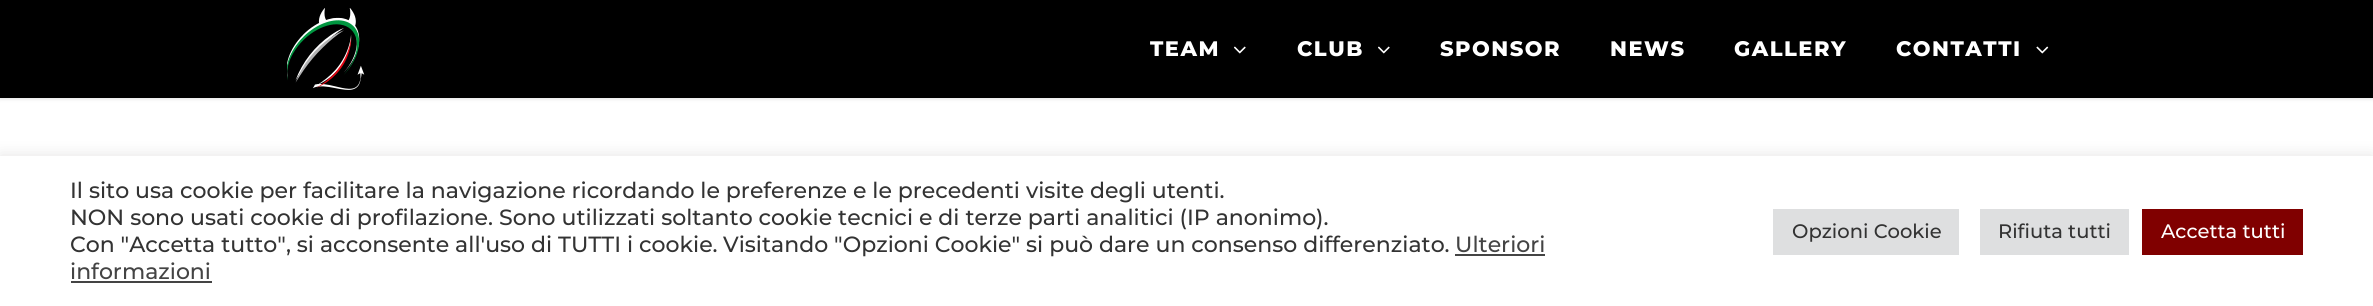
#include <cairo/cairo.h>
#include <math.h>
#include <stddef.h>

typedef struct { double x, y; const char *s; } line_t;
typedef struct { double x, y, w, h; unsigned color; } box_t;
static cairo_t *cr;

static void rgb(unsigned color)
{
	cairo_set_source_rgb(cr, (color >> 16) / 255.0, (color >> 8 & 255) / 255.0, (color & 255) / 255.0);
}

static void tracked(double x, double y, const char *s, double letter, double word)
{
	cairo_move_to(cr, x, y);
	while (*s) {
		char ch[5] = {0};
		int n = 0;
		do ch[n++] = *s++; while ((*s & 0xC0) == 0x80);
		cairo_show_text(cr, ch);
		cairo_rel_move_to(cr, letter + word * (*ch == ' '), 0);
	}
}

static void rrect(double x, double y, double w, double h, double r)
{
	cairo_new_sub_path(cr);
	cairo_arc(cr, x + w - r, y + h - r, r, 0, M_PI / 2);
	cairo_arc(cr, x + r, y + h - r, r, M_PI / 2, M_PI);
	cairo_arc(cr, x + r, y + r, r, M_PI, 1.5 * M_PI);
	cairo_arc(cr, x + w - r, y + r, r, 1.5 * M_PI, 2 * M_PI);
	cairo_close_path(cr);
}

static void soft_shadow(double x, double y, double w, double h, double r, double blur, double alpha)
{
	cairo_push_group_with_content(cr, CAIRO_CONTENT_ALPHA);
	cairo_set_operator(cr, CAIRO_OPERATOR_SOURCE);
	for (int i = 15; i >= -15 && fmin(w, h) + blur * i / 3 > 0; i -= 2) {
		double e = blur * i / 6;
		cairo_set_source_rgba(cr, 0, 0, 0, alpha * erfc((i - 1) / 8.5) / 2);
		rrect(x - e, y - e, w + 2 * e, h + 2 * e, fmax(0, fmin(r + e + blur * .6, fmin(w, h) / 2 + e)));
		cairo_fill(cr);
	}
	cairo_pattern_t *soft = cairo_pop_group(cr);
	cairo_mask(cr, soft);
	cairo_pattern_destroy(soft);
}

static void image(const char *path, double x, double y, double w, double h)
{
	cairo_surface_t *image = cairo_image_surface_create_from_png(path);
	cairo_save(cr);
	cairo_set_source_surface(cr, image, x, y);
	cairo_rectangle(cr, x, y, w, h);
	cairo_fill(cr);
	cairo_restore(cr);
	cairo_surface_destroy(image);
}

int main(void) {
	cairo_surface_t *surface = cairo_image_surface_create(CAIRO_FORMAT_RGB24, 2373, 306);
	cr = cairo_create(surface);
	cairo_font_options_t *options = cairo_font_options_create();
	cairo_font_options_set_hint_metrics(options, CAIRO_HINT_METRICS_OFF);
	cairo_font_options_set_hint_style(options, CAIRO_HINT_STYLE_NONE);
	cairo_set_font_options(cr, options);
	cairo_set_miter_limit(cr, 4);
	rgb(0xffffff);
	cairo_paint(cr);
	rgb(0x000000);
	soft_shadow(0, 2, 2373, 97, 0, 2, 0.12);
	rgb(0x000000);
	cairo_rectangle(cr, 0, 0, 2373, 98);
	cairo_fill(cr);
	image("img/1.png", 287, 8, 78, 82);
	image("img/2.png", 1234, 46, 12, 8);
	image("img/2.png", 1378, 46, 12, 8);
	image("img/3.png", 2036, 46, 13, 8);
	rgb(0xacabab);
	soft_shadow(0, 155, 2373, 150, 0, 7.5, 0.3);
	{
		static const box_t items[] = {
			{0, 156, 2373, 150, 0xffffff},
			{1455, 254, 90, 2, 0x444444},
			{71, 281, 141, 2, 0x444444},
			{1773, 209, 186, 46, 0xdedfe0},
			{1980, 209, 149, 46, 0xdedfe0},
			{2142, 209, 161, 46, 0x800000},
		};
		for (size_t i = 0; i < sizeof items / sizeof *items; i++) {
			rgb(items[i].color);
			cairo_rectangle(cr, items[i].x, items[i].y, items[i].w, items[i].h);
			cairo_fill(cr);
		}
	}
	cairo_select_font_face(cr, "Montserrat ExtraBold", CAIRO_FONT_SLANT_NORMAL, CAIRO_FONT_WEIGHT_NORMAL);
	cairo_set_font_size(cr, 21);
	rgb(0xffffff);
	{
		static const line_t items[] = {
			{1150, 56, "TEAM"},
			{1297, 56, "CLUB"},
			{1440, 56, "SPONSOR"},
			{1610, 56, "NEWS"},
			{1734, 56, "GALLERY"},
			{1896, 56, "CONTATTI"},
		};
		for (size_t i = 0; i < sizeof items / sizeof *items; i++) {
			tracked(items[i].x, items[i].y, items[i].s, 1.5, 0);
		}
	}
	cairo_select_font_face(cr, "Montserrat Medium", CAIRO_FONT_SLANT_NORMAL, CAIRO_FONT_WEIGHT_NORMAL);
	cairo_set_font_size(cr, 22);
	rgb(0x333333);
	{
		static const line_t items[] = {
			{70, 198, "Il sito usa cookie per facilitare la navigazione ricordando le preferenze e le precedenti visite degli utenti."},
			{70, 225, "NON sono usati cookie di profilazione."},
			{499, 225, "Sono utilizzati soltanto cookie tecnici e di terze parti analitici (IP anonimo)."},
			{70, 252, "Con \"Accetta tutto\", si acconsente all'uso di TUTTI i cookie."},
			{723, 252, "Visitando \"Opzioni Cookie\" si può dare un consenso differenziato."},
		};
		for (size_t i = 0; i < sizeof items / sizeof *items; i++) {
			cairo_move_to(cr, items[i].x, items[i].y);
			cairo_show_text(cr, items[i].s);
		}
	}
	rgb(0x444444);
	cairo_move_to(cr, 1455, 252);
	cairo_show_text(cr, "Ulteriori");
	cairo_move_to(cr, 70, 279);
	cairo_show_text(cr, "informazioni");
	cairo_set_font_size(cr, 19.5);
	rgb(0x333333);
	cairo_move_to(cr, 1792, 238);
	cairo_show_text(cr, "Opzioni Cookie");
	cairo_move_to(cr, 1998, 238);
	cairo_show_text(cr, "Rifiuta tutti");
	rgb(0xffffff);
	cairo_move_to(cr, 2161, 238);
	cairo_show_text(cr, "Accetta tutti");
	cairo_surface_write_to_png(surface, "page.png");
	cairo_font_options_destroy(options);
	cairo_destroy(cr);
	cairo_surface_destroy(surface);
	return 0;
}
